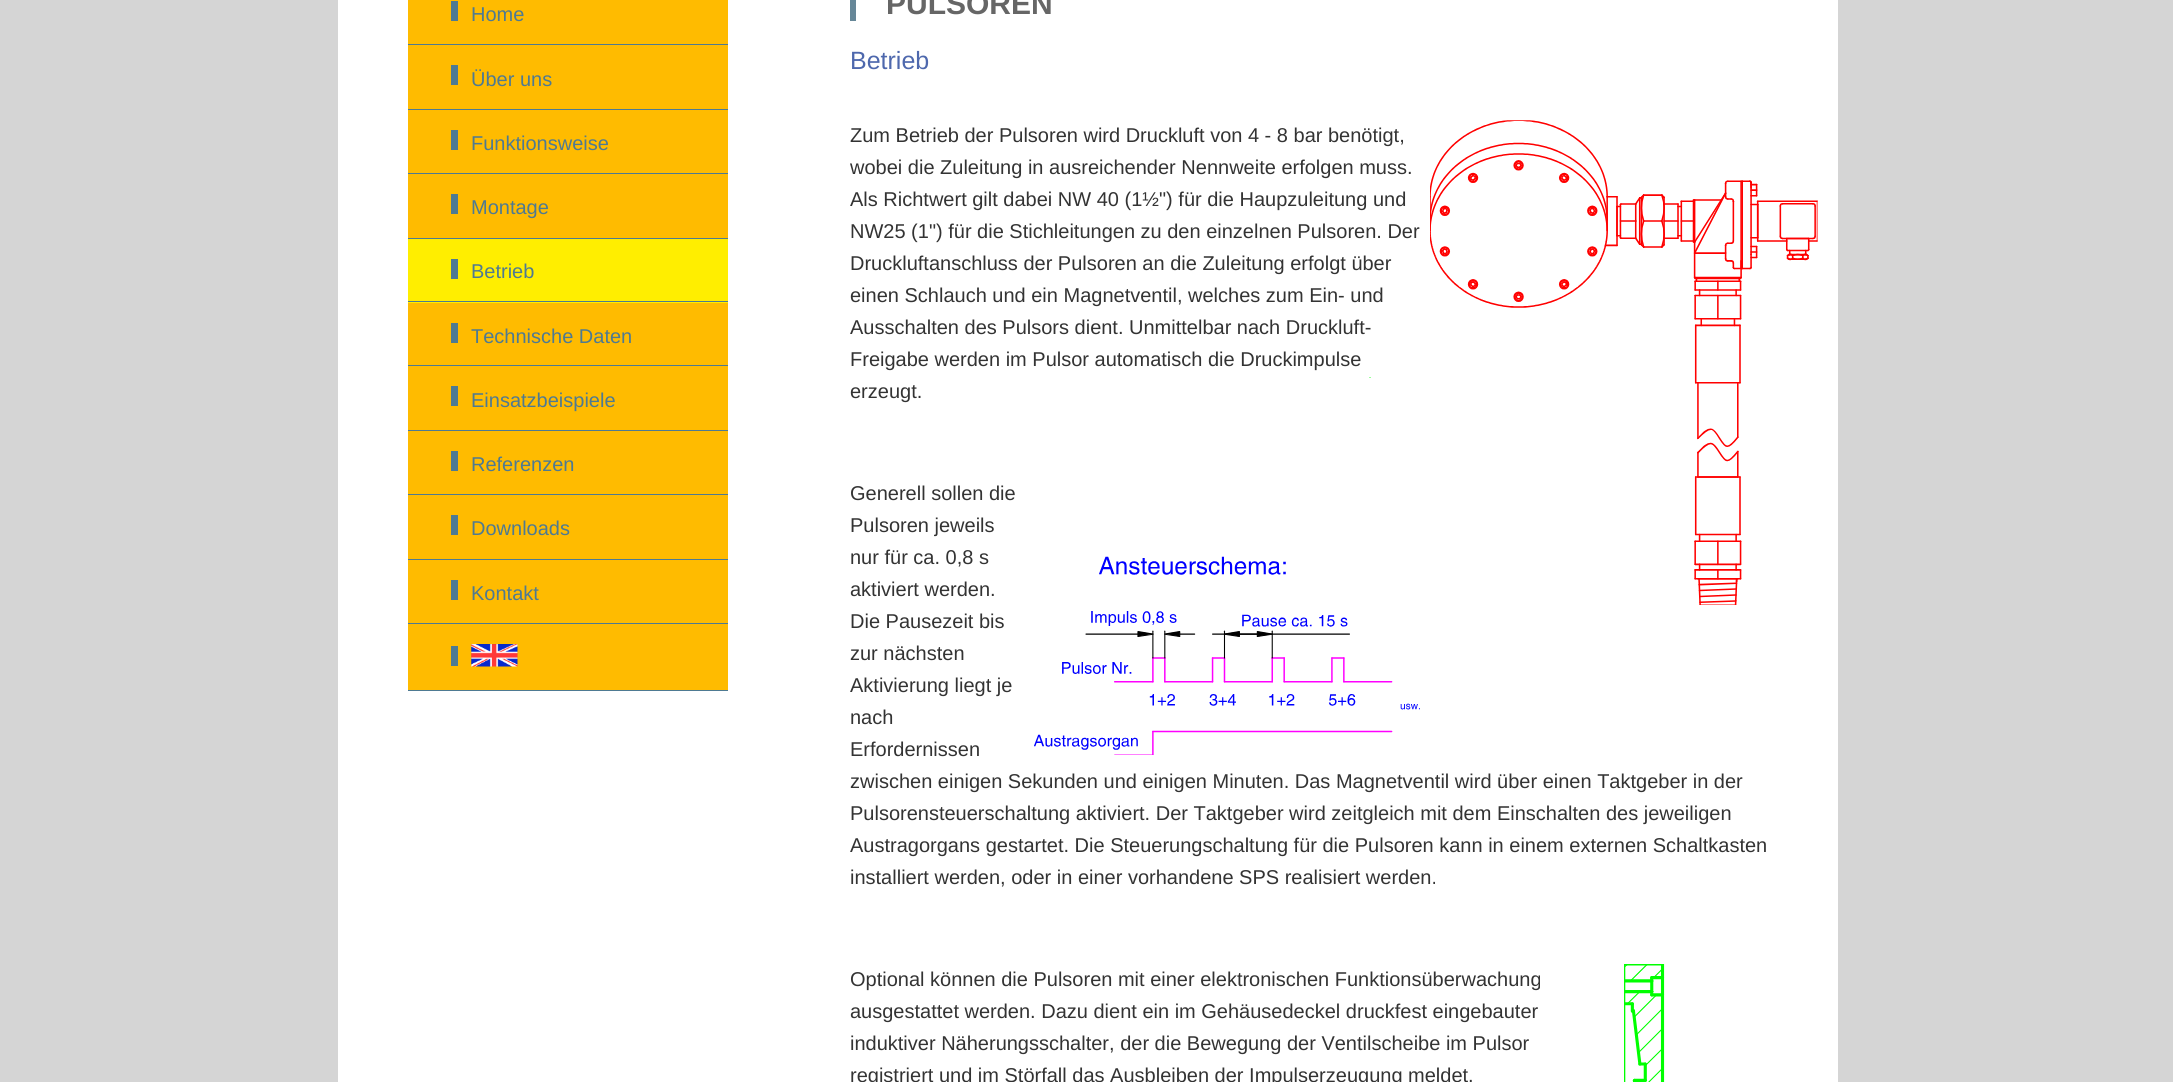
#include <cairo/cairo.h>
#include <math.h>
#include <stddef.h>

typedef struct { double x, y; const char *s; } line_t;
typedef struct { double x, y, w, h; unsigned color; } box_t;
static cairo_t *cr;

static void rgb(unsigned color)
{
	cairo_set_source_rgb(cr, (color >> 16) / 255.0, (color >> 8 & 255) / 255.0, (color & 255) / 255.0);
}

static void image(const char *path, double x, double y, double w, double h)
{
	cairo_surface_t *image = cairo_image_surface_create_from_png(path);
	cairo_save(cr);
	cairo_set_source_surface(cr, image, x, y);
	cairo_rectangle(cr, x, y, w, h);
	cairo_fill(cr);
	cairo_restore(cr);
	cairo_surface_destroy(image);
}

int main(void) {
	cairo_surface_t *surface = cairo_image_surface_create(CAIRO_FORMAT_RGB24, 2173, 1082);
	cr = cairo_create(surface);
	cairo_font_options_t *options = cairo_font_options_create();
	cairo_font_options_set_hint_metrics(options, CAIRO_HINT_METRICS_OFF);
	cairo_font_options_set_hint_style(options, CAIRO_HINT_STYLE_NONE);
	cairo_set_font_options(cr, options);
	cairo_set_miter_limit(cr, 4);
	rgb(0xd5d5d5);
	cairo_paint(cr);
	{
		static const box_t items[] = {
			{338, 0, 1500, 1082, 0xffffff},
			{408, 0, 320, 44, 0xffbb00},
			{408, 44, 320, 1, 0x4e7a92},
			{451, 1, 7, 20, 0x4e7a92},
			{408, 45, 320, 64, 0xffbb00},
			{408, 109, 320, 1, 0x4e7a92},
			{451, 65, 7, 20, 0x4e7a92},
			{408, 110, 320, 63, 0xffbb00},
			{408, 173, 320, 1, 0x4e7a92},
			{451, 130, 7, 20, 0x4e7a92},
			{408, 174, 320, 64, 0xffbb00},
			{408, 238, 320, 1, 0x4e7a92},
			{451, 194, 7, 20, 0x4e7a92},
			{408, 239, 320, 64, 0xffee00},
			{408, 301, 320, 1, 0x4e7a92},
			{451, 259, 7, 20, 0x4e7a92},
			{408, 303, 320, 62, 0xffbb00},
			{408, 365, 320, 1, 0x4e7a92},
			{451, 323, 7, 20, 0x4e7a92},
			{408, 366, 320, 64, 0xffbb00},
			{408, 430, 320, 1, 0x4e7a92},
			{451, 386, 7, 20, 0x4e7a92},
			{408, 431, 320, 63, 0xffbb00},
			{408, 494, 320, 1, 0x4e7a92},
			{451, 451, 7, 20, 0x4e7a92},
			{408, 495, 320, 64, 0xffbb00},
			{408, 559, 320, 1, 0x4e7a92},
			{451, 515, 7, 20, 0x4e7a92},
			{408, 560, 320, 63, 0xffbb00},
			{408, 623, 320, 1, 0x4e7a92},
			{451, 580, 7, 20, 0x4e7a92},
			{408, 624, 320, 66, 0xffbb00},
			{408, 690, 320, 1, 0x4e7a92},
			{451, 646, 7, 20, 0x4e7a92},
		};
		for (size_t i = 0; i < sizeof items / sizeof *items; i++) {
			rgb(items[i].color);
			cairo_rectangle(cr, items[i].x, items[i].y, items[i].w, items[i].h);
			cairo_fill(cr);
		}
	}
	image("img/1.png", 471, 644, 47, 23);
	rgb(0x668798);
	cairo_rectangle(cr, 850, 0, 6, 21);
	cairo_fill(cr);
	image("img/2.png", 1430, 120, 388, 485);
	image("img/3.png", 1034, 377, 386, 378);
	image("img/4.png", 1624, 964, 41, 118);
	cairo_select_font_face(cr, "Liberation Sans", CAIRO_FONT_SLANT_NORMAL, CAIRO_FONT_WEIGHT_NORMAL);
	cairo_set_font_size(cr, 20);
	rgb(0x4e7a92);
	{
		static const line_t items[] = {
			{471, 21, "Home"},
			{471, 86, "Über uns"},
			{471, 150, "Funktionsweise"},
			{471, 214, "Montage"},
			{471, 278, "Betrieb"},
			{471, 343, "Technische Daten"},
			{471, 407, "Einsatzbeispiele"},
			{471, 471, "Referenzen"},
			{471, 535, "Downloads"},
			{471, 600, "Kontakt"},
		};
		for (size_t i = 0; i < sizeof items / sizeof *items; i++) {
			cairo_move_to(cr, items[i].x, items[i].y);
			cairo_show_text(cr, items[i].s);
		}
	}
	cairo_select_font_face(cr, "Liberation Sans", CAIRO_FONT_SLANT_NORMAL, CAIRO_FONT_WEIGHT_BOLD);
	cairo_set_font_size(cr, 30);
	rgb(0x666666);
	cairo_move_to(cr, 886, 14);
	cairo_show_text(cr, "PULSOREN");
	cairo_select_font_face(cr, "Liberation Sans", CAIRO_FONT_SLANT_NORMAL, CAIRO_FONT_WEIGHT_NORMAL);
	cairo_set_font_size(cr, 25);
	rgb(0x4e68ad);
	cairo_move_to(cr, 850, 69);
	cairo_show_text(cr, "Betrieb");
	cairo_set_font_size(cr, 20);
	rgb(0x333333);
	{
		static const line_t items[] = {
			{850, 142, "Zum Betrieb der Pulsoren wird Druckluft von 4 - 8 bar benötigt,"},
			{850, 174, "wobei die Zuleitung in ausreichender Nennweite erfolgen muss."},
			{850, 206, "Als Richtwert gilt dabei NW 40 (1½\") für die Haupzuleitung und"},
			{850, 238, "NW25 (1\") für die Stichleitungen zu den einzelnen Pulsoren. Der"},
			{850, 270, "Druckluftanschluss der Pulsoren an die Zuleitung erfolgt über"},
			{850, 302, "einen Schlauch und ein Magnetventil, welches zum Ein- und"},
			{850, 334, "Ausschalten des Pulsors dient. Unmittelbar nach Druckluft-"},
			{850, 366, "Freigabe werden im Pulsor automatisch die Druckimpulse"},
			{850, 398, "erzeugt."},
			{850, 500, "Generell sollen die"},
			{850, 532, "Pulsoren jeweils"},
			{850, 564, "nur für ca. 0,8 s"},
			{850, 596, "aktiviert werden."},
			{850, 628, "Die Pausezeit bis"},
			{850, 660, "zur nächsten"},
			{850, 692, "Aktivierung liegt je"},
			{850, 724, "nach"},
			{850, 756, "Erfordernissen"},
			{850, 788, "zwischen einigen Sekunden und einigen Minuten. Das Magnetventil wird über einen Taktgeber in der"},
			{850, 820, "Pulsorensteuerschaltung aktiviert. Der Taktgeber wird zeitgleich mit dem Einschalten des jeweiligen"},
			{850, 852, "Austragorgans gestartet. Die Steuerungschaltung für die Pulsoren kann in einem externen Schaltkasten"},
			{850, 884, "installiert werden, oder in einer vorhandene SPS realisiert werden."},
			{850, 986, "Optional können die Pulsoren mit einer elektronischen Funktionsüberwachung"},
			{850, 1018, "ausgestattet werden. Dazu dient ein im Gehäusedeckel druckfest eingebauter"},
			{850, 1050, "induktiver Näherungsschalter, der die Bewegung der Ventilscheibe im Pulsor"},
			{850, 1082, "registriert und im Störfall das Ausbleiben der Impulserzeugung meldet."},
		};
		for (size_t i = 0; i < sizeof items / sizeof *items; i++) {
			cairo_move_to(cr, items[i].x, items[i].y);
			cairo_show_text(cr, items[i].s);
		}
	}
	cairo_surface_write_to_png(surface, "page.png");
	cairo_font_options_destroy(options);
	cairo_destroy(cr);
	cairo_surface_destroy(surface);
	return 0;
}
